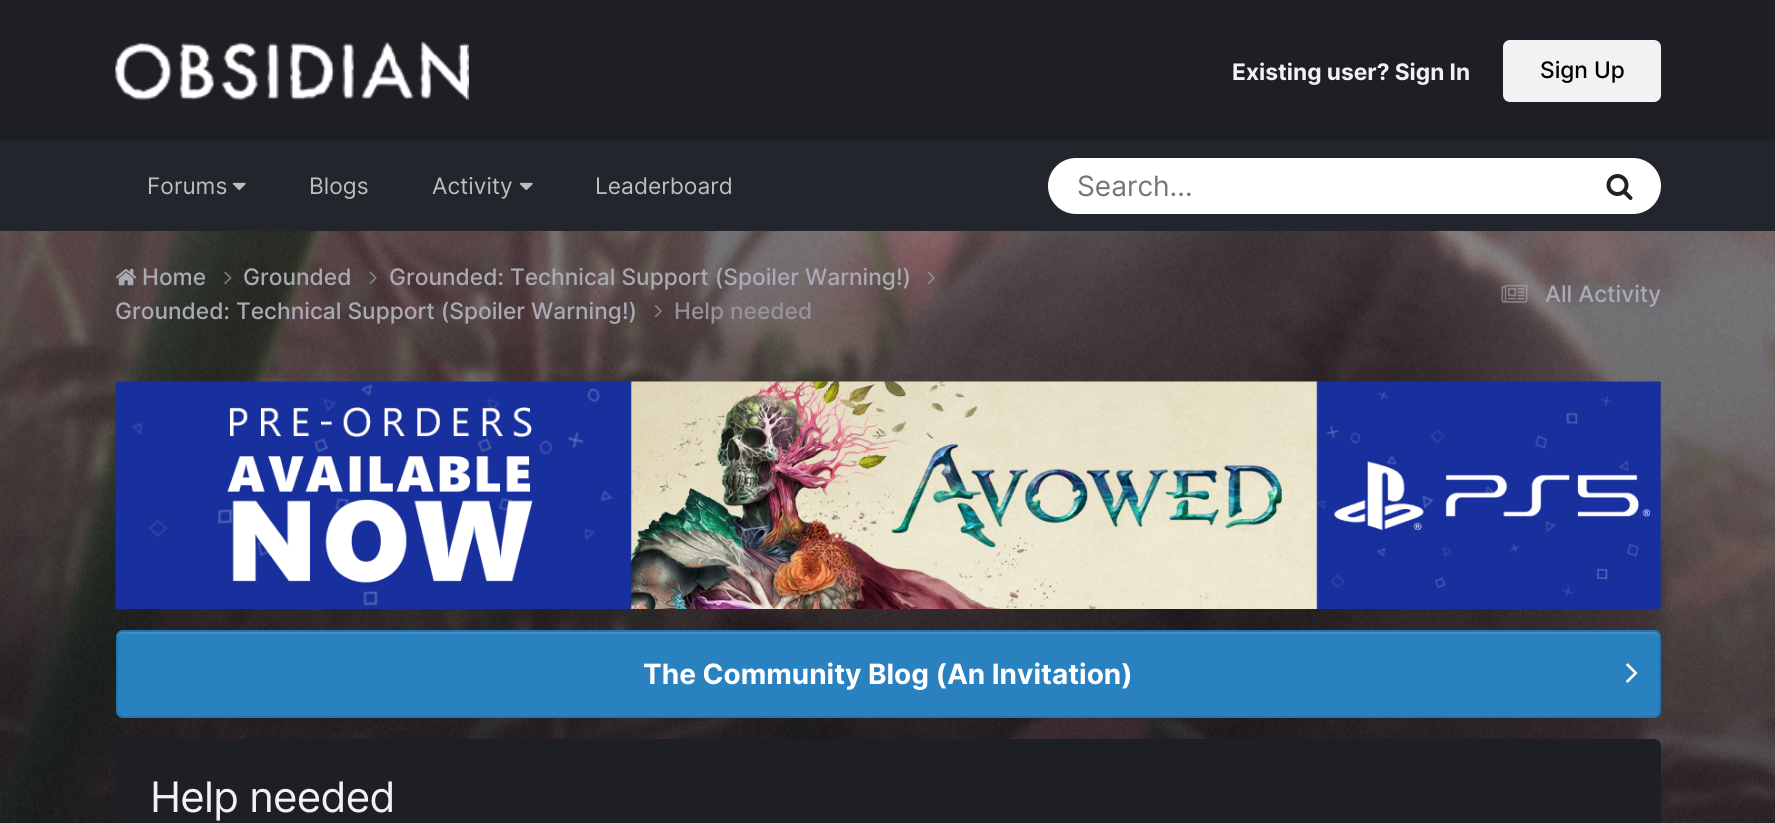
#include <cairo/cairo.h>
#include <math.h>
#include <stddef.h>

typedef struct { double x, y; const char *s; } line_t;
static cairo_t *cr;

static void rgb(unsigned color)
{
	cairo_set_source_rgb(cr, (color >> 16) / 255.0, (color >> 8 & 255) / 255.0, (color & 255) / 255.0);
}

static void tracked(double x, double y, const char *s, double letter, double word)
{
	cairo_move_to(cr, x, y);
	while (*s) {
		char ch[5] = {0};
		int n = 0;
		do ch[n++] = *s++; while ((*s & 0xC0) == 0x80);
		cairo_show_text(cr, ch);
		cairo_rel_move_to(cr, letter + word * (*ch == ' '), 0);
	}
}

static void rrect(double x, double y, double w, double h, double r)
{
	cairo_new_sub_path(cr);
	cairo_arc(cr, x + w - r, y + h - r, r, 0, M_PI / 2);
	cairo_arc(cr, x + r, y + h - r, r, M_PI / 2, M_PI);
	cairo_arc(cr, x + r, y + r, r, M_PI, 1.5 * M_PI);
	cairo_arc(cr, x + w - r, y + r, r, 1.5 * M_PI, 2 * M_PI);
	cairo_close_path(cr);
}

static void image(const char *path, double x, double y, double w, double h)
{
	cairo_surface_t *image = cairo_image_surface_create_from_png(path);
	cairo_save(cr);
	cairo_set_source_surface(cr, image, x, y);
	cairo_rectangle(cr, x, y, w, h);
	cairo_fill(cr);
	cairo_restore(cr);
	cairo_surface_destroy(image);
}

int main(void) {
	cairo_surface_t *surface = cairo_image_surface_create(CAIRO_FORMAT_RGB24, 1775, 823);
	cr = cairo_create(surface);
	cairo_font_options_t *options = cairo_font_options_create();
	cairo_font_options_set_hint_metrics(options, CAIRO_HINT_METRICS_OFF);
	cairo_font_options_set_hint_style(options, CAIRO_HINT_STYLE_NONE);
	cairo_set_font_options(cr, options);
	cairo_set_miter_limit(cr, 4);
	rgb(0xffffff);
	cairo_paint(cr);
	rgb(0x1d1f25);
	cairo_rectangle(cr, 0, 0, 1775, 140);
	cairo_fill(cr);
	image("img/1.png", 115, 42, 354, 58);
	rgb(0xf2f2f2);
	rrect(1503, 40, 158, 62, 7);
	cairo_fill(cr);
	rgb(0x23252c);
	cairo_rectangle(cr, 0, 140, 1775, 91);
	cairo_fill(cr);
	image("img/2.png", 232, 182, 14, 9);
	image("img/2.png", 519, 182, 14, 9);
	rgb(0xffffff);
	rrect(1048, 158, 613, 56, 28);
	cairo_fill(cr);
	image("img/3.png", 1606, 174, 27, 26);
	image("img/4.png", 0, 231, 1775, 592);
	image("img/5.png", 116, 269, 21, 17);
	image("img/6.png", 224, 271, 8, 14);
	image("img/7.png", 369, 271, 8, 14);
	image("img/8.png", 927, 271, 8, 14);
	image("img/9.png", 654, 305, 8, 13);
	image("img/10.png", 1501, 284, 27, 19);
	image("img/11.png", 115, 381, 1546, 228);
	rgb(0x2981bf);
	rrect(116, 630, 1545, 88, 7);
	cairo_fill(cr);
	rgb(0x3e8ec5);
	cairo_new_path(cr);
	cairo_move_to(cr, 122, 634);
	cairo_line_to(cr, 1654, 634);
	cairo_curve_to(cr, 1657, 634, 1659, 636, 1659, 639);
	cairo_curve_to(cr, 1659, 636, 1658, 632, 1654, 632);
	cairo_line_to(cr, 122, 632);
	cairo_curve_to(cr, 118, 632, 117, 636, 117, 639);
	cairo_curve_to(cr, 117, 636, 120, 634, 122, 634);
	cairo_close_path(cr);
	cairo_fill(cr);
	rrect(117, 631, 1543, 86, 6);
	cairo_set_source_rgba(cr, 0, 0, 0, 0.1);
	cairo_stroke(cr);
	image("img/12.png", 1626, 663, 12, 20);
	rgb(0x1d1f25);
	rrect(116, 739, 1545, 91, 7);
	cairo_fill(cr);
	cairo_select_font_face(cr, "Inter", CAIRO_FONT_SLANT_NORMAL, CAIRO_FONT_WEIGHT_BOLD);
	cairo_set_font_size(cr, 22.75);
	rgb(0xf2f2f2);
	cairo_move_to(cr, 1232, 80);
	cairo_show_text(cr, "Existing user? Sign In");
	cairo_select_font_face(cr, "Inter Medium", CAIRO_FONT_SLANT_NORMAL, CAIRO_FONT_WEIGHT_NORMAL);
	rgb(0x000000);
	cairo_move_to(cr, 1540, 78);
	cairo_show_text(cr, "Sign Up");
	cairo_select_font_face(cr, "Inter", CAIRO_FONT_SLANT_NORMAL, CAIRO_FONT_WEIGHT_NORMAL);
	rgb(0xbdbec0);
	{
		static const line_t items[] = {
			{147, 194, "Forums"},
			{309, 194, "Blogs"},
			{432, 194, "Activity"},
			{595, 194, "Leaderboard"},
		};
		for (size_t i = 0; i < sizeof items / sizeof *items; i++) {
			cairo_move_to(cr, items[i].x, items[i].y);
			cairo_show_text(cr, items[i].s);
		}
	}
	cairo_set_font_size(cr, 28);
	rgb(0x757575);
	cairo_move_to(cr, 1077, 196);
	cairo_show_text(cr, "Search...");
	cairo_select_font_face(cr, "Inter Medium", CAIRO_FONT_SLANT_NORMAL, CAIRO_FONT_WEIGHT_NORMAL);
	cairo_set_font_size(cr, 22.75);
	rgb(0xaaaab6);
	{
		static const line_t items[] = {
			{142, 285, "Home"},
			{243, 285, "Grounded"},
			{389, 285, "Grounded: Technical Support (Spoiler Warning!)"},
			{115, 319, "Grounded: Technical Support (Spoiler Warning!)"},
		};
		for (size_t i = 0; i < sizeof items / sizeof *items; i++) {
			cairo_move_to(cr, items[i].x, items[i].y);
			cairo_show_text(cr, items[i].s);
		}
	}
	rgb(0x96929a);
	cairo_move_to(cr, 674, 319);
	cairo_show_text(cr, "Help needed");
	rgb(0xaaaab6);
	cairo_move_to(cr, 1545, 302);
	cairo_show_text(cr, "All Activity");
	cairo_select_font_face(cr, "Inter", CAIRO_FONT_SLANT_NORMAL, CAIRO_FONT_WEIGHT_BOLD);
	cairo_set_font_size(cr, 28);
	rgb(0xffffff);
	cairo_move_to(cr, 643, 684);
	cairo_show_text(cr, "The Community Blog (An Invitation)");
	cairo_select_font_face(cr, "Inter", CAIRO_FONT_SLANT_NORMAL, CAIRO_FONT_WEIGHT_NORMAL);
	cairo_set_font_size(cr, 42);
	rgb(0xf2f2f2);
	tracked(150, 812, "Help needed", -0.75, 0);
	cairo_surface_write_to_png(surface, "page.png");
	cairo_font_options_destroy(options);
	cairo_destroy(cr);
	cairo_surface_destroy(surface);
	return 0;
}
